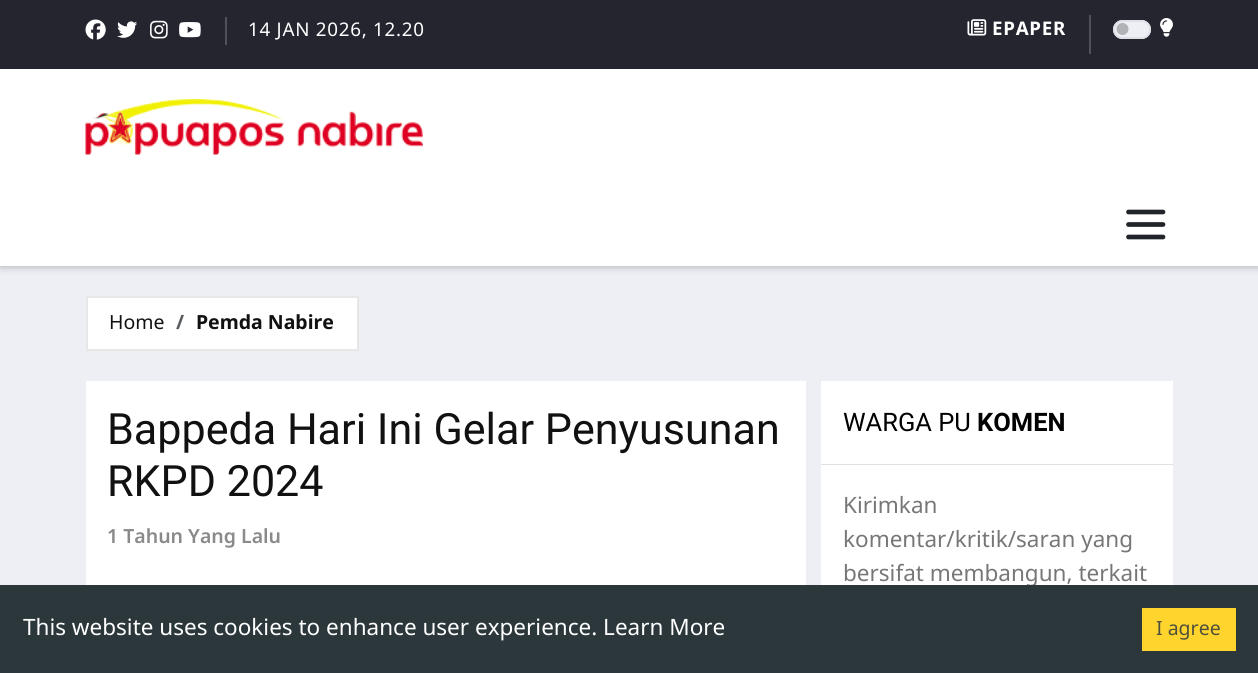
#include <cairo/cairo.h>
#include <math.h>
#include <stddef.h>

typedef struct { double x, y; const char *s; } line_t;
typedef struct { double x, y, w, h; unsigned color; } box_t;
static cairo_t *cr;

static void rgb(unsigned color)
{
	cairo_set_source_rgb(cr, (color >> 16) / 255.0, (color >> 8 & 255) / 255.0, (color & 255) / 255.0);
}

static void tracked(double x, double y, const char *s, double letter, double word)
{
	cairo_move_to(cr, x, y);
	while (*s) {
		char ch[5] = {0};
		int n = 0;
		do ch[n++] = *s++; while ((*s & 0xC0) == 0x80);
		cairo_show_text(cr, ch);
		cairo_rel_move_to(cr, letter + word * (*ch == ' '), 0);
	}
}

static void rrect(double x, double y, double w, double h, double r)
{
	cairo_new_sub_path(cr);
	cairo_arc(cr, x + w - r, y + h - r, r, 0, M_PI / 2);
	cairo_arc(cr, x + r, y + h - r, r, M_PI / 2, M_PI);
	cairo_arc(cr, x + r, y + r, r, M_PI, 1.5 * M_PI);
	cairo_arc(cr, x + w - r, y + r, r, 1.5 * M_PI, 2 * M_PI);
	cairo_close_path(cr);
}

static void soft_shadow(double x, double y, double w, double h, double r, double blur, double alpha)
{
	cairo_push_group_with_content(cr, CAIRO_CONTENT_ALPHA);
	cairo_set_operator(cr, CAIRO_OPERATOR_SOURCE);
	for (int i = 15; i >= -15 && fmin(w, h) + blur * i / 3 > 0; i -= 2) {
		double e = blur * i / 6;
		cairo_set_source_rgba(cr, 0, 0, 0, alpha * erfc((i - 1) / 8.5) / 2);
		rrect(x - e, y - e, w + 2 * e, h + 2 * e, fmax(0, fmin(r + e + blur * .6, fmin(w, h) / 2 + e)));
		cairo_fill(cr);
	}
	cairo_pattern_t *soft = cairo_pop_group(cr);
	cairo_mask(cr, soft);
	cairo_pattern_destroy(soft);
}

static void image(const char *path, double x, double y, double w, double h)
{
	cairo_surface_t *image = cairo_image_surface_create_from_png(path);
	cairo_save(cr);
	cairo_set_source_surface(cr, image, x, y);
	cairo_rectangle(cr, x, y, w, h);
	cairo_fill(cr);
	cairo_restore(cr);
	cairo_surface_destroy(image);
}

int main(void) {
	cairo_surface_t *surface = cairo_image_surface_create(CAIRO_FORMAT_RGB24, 1258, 673);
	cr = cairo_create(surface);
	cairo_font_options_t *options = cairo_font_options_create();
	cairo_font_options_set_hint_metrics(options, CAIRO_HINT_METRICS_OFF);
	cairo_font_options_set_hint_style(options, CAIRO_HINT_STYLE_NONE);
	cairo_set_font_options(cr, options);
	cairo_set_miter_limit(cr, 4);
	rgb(0xedeff4);
	cairo_paint(cr);
	rgb(0x000000);
	soft_shadow(0, 2, 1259, 265, 0, 4, 0.25);
	rgb(0x24252f);
	cairo_rectangle(cr, 0, 0, 1258, 69);
	cairo_fill(cr);
	image("img/1.png", 85, 19, 21, 21);
	image("img/2.png", 117, 21, 21, 17);
	image("img/3.png", 150, 20, 18, 19);
	image("img/4.png", 179, 22, 22, 16);
	rgb(0x505159);
	cairo_rectangle(cr, 225, 17, 2, 28);
	cairo_fill(cr);
	image("img/5.png", 967, 19, 20, 17);
	cairo_rectangle(cr, 1089, 15, 2, 39);
	cairo_fill(cr);
	rgb(0xedeff4);
	rrect(1113, 20, 38, 19, 9.5);
	cairo_fill(cr);
	rgb(0xb2b3b7);
	cairo_arc(cr, 1122.5, 29, 6, 0, 2 * M_PI);
	cairo_fill(cr);
	rrect(1114, 21, 36, 17, 8.5);
	rgb(0xdee2e6);
	cairo_stroke(cr);
	image("img/6.png", 1160, 18, 13, 19);
	rgb(0xffffff);
	cairo_rectangle(cr, 0, 69, 1258, 197);
	cairo_fill(cr);
	image("img/7.png", 85, 99, 338, 56);
	cairo_new_path(cr);
	cairo_move_to(cr, 1128.5, 212);
	cairo_line_to(cr, 1163, 212);
	cairo_move_to(cr, 1128.5, 224.5);
	cairo_line_to(cr, 1163, 224.5);
	cairo_move_to(cr, 1128.5, 237);
	cairo_line_to(cr, 1163, 237);
	rgb(0x212529);
	cairo_set_line_width(cr, 4.7);
	cairo_set_line_cap(cr, CAIRO_LINE_CAP_ROUND);
	cairo_stroke(cr);
	rgb(0xffffff);
	cairo_rectangle(cr, 87, 297, 271, 53);
	cairo_fill_preserve(cr);
	rgb(0xe7e7e7);
	cairo_set_line_width(cr, 2);
	cairo_set_line_cap(cr, CAIRO_LINE_CAP_BUTT);
	cairo_stroke(cr);
	{
		static const box_t items[] = {
			{86, 381, 720, 204, 0xffffff},
			{821, 381, 352, 83, 0xffffff},
			{821, 464, 352, 1, 0xe0e0e0},
			{821, 465, 352, 120, 0xffffff},
		};
		for (size_t i = 0; i < sizeof items / sizeof *items; i++) {
			rgb(items[i].color);
			cairo_rectangle(cr, items[i].x, items[i].y, items[i].w, items[i].h);
			cairo_fill(cr);
		}
	}
	cairo_select_font_face(cr, "Noto Sans", CAIRO_FONT_SLANT_NORMAL, CAIRO_FONT_WEIGHT_NORMAL);
	cairo_set_font_size(cr, 18.75);
	tracked(248, 36, "14 JAN 2026, 12.20", 0.75, 0);
	cairo_select_font_face(cr, "Noto Sans", CAIRO_FONT_SLANT_NORMAL, CAIRO_FONT_WEIGHT_BOLD);
	tracked(992, 35, "EPAPER", 0.75, 0);
	cairo_select_font_face(cr, "Noto Sans", CAIRO_FONT_SLANT_NORMAL, CAIRO_FONT_WEIGHT_NORMAL);
	cairo_set_font_size(cr, 19.5);
	rgb(0x111111);
	cairo_move_to(cr, 109, 329);
	cairo_show_text(cr, "Home");
	cairo_select_font_face(cr, "Noto Sans", CAIRO_FONT_SLANT_NORMAL, CAIRO_FONT_WEIGHT_BOLD);
	rgb(0x595c5f);
	cairo_move_to(cr, 176, 329);
	cairo_show_text(cr, "/");
	rgb(0x111111);
	cairo_move_to(cr, 196, 329);
	cairo_show_text(cr, "Pemda Nabire");
	cairo_select_font_face(cr, "Roboto", CAIRO_FONT_SLANT_NORMAL, CAIRO_FONT_WEIGHT_NORMAL);
	cairo_set_font_size(cr, 43.1);
	cairo_move_to(cr, 107, 444);
	cairo_show_text(cr, "Bappeda Hari Ini Gelar Penyusunan");
	cairo_move_to(cr, 107, 496);
	cairo_show_text(cr, "RKPD 2024");
	cairo_select_font_face(cr, "Noto Sans SemiBold", CAIRO_FONT_SLANT_NORMAL, CAIRO_FONT_WEIGHT_NORMAL);
	cairo_set_font_size(cr, 19.5);
	rgb(0x8a8a8a);
	cairo_move_to(cr, 107, 543);
	cairo_show_text(cr, "1 Tahun Yang Lalu");
	cairo_select_font_face(cr, "Roboto", CAIRO_FONT_SLANT_NORMAL, CAIRO_FONT_WEIGHT_NORMAL);
	cairo_set_font_size(cr, 25.5);
	rgb(0x000000);
	cairo_move_to(cr, 843, 431);
	cairo_show_text(cr, "WARGA PU");
	cairo_select_font_face(cr, "Roboto", CAIRO_FONT_SLANT_NORMAL, CAIRO_FONT_WEIGHT_BOLD);
	cairo_move_to(cr, 977, 431);
	cairo_show_text(cr, "KOMEN");
	cairo_select_font_face(cr, "Noto Sans", CAIRO_FONT_SLANT_NORMAL, CAIRO_FONT_WEIGHT_NORMAL);
	cairo_set_font_size(cr, 22.5);
	rgb(0x777777);
	{
		static const line_t items[] = {
			{843, 513, "Kirimkan"},
			{843, 547, "komentar/kritik/saran yang"},
			{843, 581, "bersifat membangun, terkait"},
		};
		for (size_t i = 0; i < sizeof items / sizeof *items; i++) {
			cairo_move_to(cr, items[i].x, items[i].y);
			cairo_show_text(cr, items[i].s);
		}
	}
	rgb(0x2b373b);
	cairo_rectangle(cr, 0, 585, 1258, 88);
	cairo_fill(cr);
	rgb(0xffffff);
	cairo_move_to(cr, 23, 635);
	cairo_show_text(cr, "This website uses cookies to enhance user experience. Learn More");
	rgb(0xffd42d);
	cairo_rectangle(cr, 1142, 608, 94, 43);
	cairo_fill(cr);
	cairo_set_font_size(cr, 19.5);
	rgb(0x4e503b);
	cairo_move_to(cr, 1156, 635);
	cairo_show_text(cr, "I agree");
	cairo_surface_write_to_png(surface, "page.png");
	cairo_font_options_destroy(options);
	cairo_destroy(cr);
	cairo_surface_destroy(surface);
	return 0;
}
